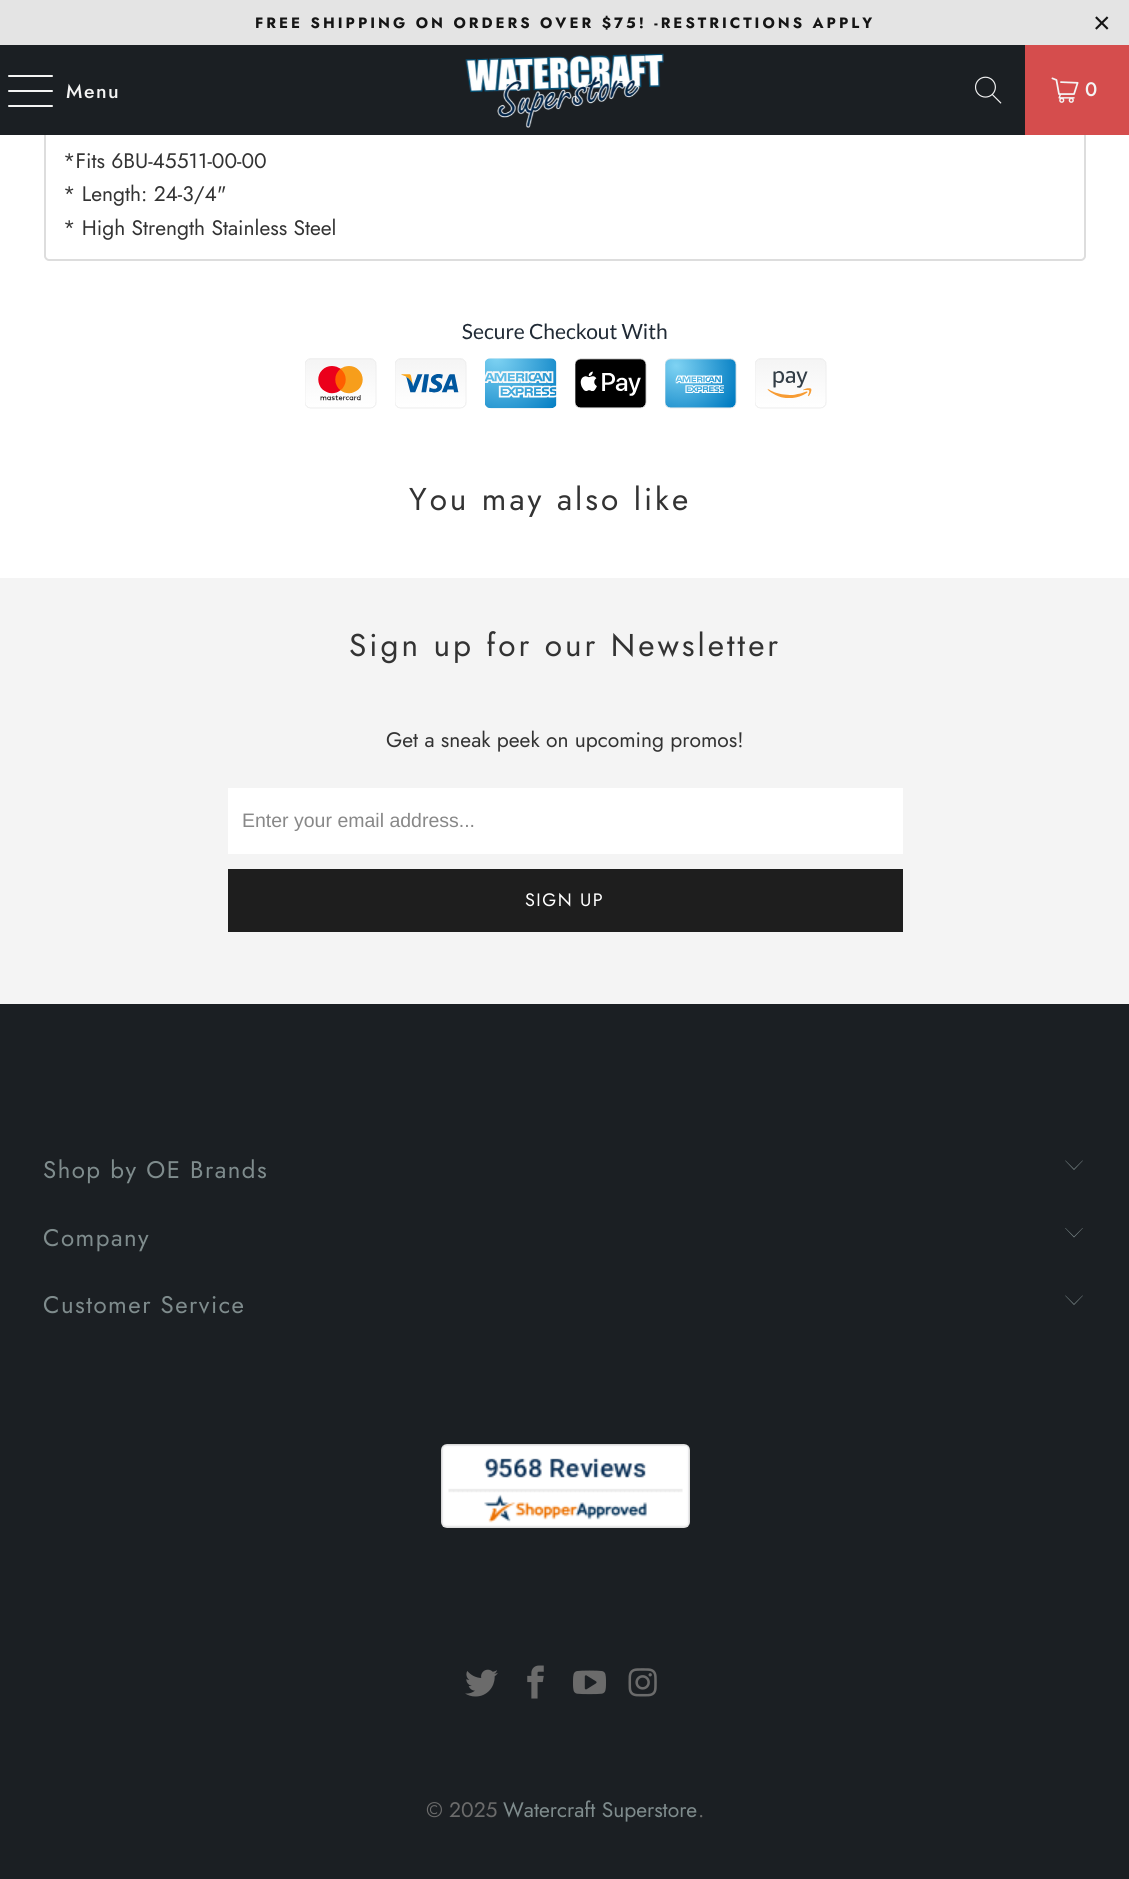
#include <cairo/cairo.h>
#include <math.h>
#include <stddef.h>

typedef struct { double x, y; const char *s; } line_t;
typedef struct { double x, y, w, h; unsigned color; } box_t;
static cairo_t *cr;

static void rgb(unsigned color)
{
	cairo_set_source_rgb(cr, (color >> 16) / 255.0, (color >> 8 & 255) / 255.0, (color & 255) / 255.0);
}

static void tracked(double x, double y, const char *s, double letter, double word)
{
	cairo_move_to(cr, x, y);
	while (*s) {
		char ch[5] = {0};
		int n = 0;
		do ch[n++] = *s++; while ((*s & 0xC0) == 0x80);
		cairo_show_text(cr, ch);
		cairo_rel_move_to(cr, letter + word * (*ch == ' '), 0);
	}
}

static void rrect(double x, double y, double w, double h, double r)
{
	cairo_new_sub_path(cr);
	cairo_arc(cr, x + w - r, y + h - r, r, 0, M_PI / 2);
	cairo_arc(cr, x + r, y + h - r, r, M_PI / 2, M_PI);
	cairo_arc(cr, x + r, y + r, r, M_PI, 1.5 * M_PI);
	cairo_arc(cr, x + w - r, y + r, r, 1.5 * M_PI, 2 * M_PI);
	cairo_close_path(cr);
}

static void image(const char *path, double x, double y, double w, double h)
{
	cairo_surface_t *image = cairo_image_surface_create_from_png(path);
	cairo_save(cr);
	cairo_set_source_surface(cr, image, x, y);
	cairo_rectangle(cr, x, y, w, h);
	cairo_fill(cr);
	cairo_restore(cr);
	cairo_surface_destroy(image);
}

int main(void) {
	cairo_surface_t *surface = cairo_image_surface_create(CAIRO_FORMAT_RGB24, 1129, 1879);
	cr = cairo_create(surface);
	cairo_font_options_t *options = cairo_font_options_create();
	cairo_font_options_set_hint_metrics(options, CAIRO_HINT_METRICS_OFF);
	cairo_font_options_set_hint_style(options, CAIRO_HINT_STYLE_NONE);
	cairo_set_font_options(cr, options);
	cairo_set_miter_limit(cr, 4);
	rgb(0xffffff);
	cairo_paint(cr);
	rgb(0xe4e4e4);
	cairo_rectangle(cr, 0, 0, 1129, 45);
	cairo_fill(cr);
	cairo_new_path(cr);
	cairo_move_to(cr, 45, 94);
	cairo_line_to(cr, 1085, 94);
	cairo_line_to(cr, 1085, 256);
	cairo_curve_to(cr, 1085, 258, 1083, 260, 1081, 260);
	cairo_line_to(cr, 49, 260);
	cairo_curve_to(cr, 47, 260, 45, 258, 45, 256);
	cairo_close_path(cr);
	rgb(0xdddddd);
	cairo_stroke(cr);
	rgb(0x1b1f23);
	cairo_rectangle(cr, 0, 45, 1025, 90);
	cairo_fill(cr);
	rgb(0xf4f4f4);
	rrect(8, 75, 45, 2, 1);
	cairo_fill(cr);
	rrect(8, 90, 45, 2, 1);
	cairo_fill(cr);
	rrect(8, 105, 45, 2, 1);
	cairo_fill(cr);
	image("img/1.png", 465, 53, 199, 75);
	image("img/2.png", 975, 76, 27, 28);
	rgb(0xd54d4d);
	cairo_rectangle(cr, 1025, 45, 104, 90);
	cairo_fill(cr);
	image("img/3.png", 1051, 77, 28, 26);
	image("img/4.png", 305, 323, 522, 86);
	{
		static const box_t items[] = {
			{0, 578, 1129, 426, 0xf4f4f4},
			{228, 788, 675, 66, 0xffffff},
			{228, 869, 675, 63, 0x1e1e1e},
			{0, 1004, 1129, 875, 0x1b1f23},
		};
		for (size_t i = 0; i < sizeof items / sizeof *items; i++) {
			rgb(items[i].color);
			cairo_rectangle(cr, items[i].x, items[i].y, items[i].w, items[i].h);
			cairo_fill(cr);
		}
	}
	rgb(0x7f8c8d);
	cairo_new_path(cr);
	cairo_move_to(cr, 1074, 1170);
	cairo_line_to(cr, 1065, 1160.5);
	cairo_line_to(cr, 1065.5, 1160.5);
	cairo_line_to(cr, 1074, 1169);
	cairo_line_to(cr, 1082.5, 1160.5);
	cairo_line_to(cr, 1083, 1160.5);
	cairo_close_path(cr);
	cairo_fill(cr);
	cairo_new_path(cr);
	cairo_move_to(cr, 1074, 1237.5);
	cairo_line_to(cr, 1065, 1228);
	cairo_line_to(cr, 1065.5, 1228);
	cairo_line_to(cr, 1074, 1236.5);
	cairo_line_to(cr, 1082.5, 1228);
	cairo_line_to(cr, 1083, 1228);
	cairo_close_path(cr);
	cairo_fill(cr);
	cairo_new_path(cr);
	cairo_move_to(cr, 1074, 1305);
	cairo_line_to(cr, 1065, 1295.5);
	cairo_line_to(cr, 1065.5, 1295.5);
	cairo_line_to(cr, 1074, 1304);
	cairo_line_to(cr, 1082.5, 1295.5);
	cairo_line_to(cr, 1083, 1295.5);
	cairo_close_path(cr);
	cairo_fill(cr);
	image("img/5.png", 441, 1444, 249, 84);
	image("img/6.png", 465, 1669, 33, 28);
	image("img/7.png", 527, 1665, 17, 34);
	image("img/8.png", 573, 1670, 33, 25);
	image("img/9.png", 628, 1668, 29, 29);
	cairo_select_font_face(cr, "Jost", CAIRO_FONT_SLANT_NORMAL, CAIRO_FONT_WEIGHT_BOLD);
	cairo_set_font_size(cr, 15);
	rgb(0x151515);
	tracked(255, 28, "FREE SHIPPING ON ORDERS OVER $75! -RESTRICTIONS APPLY", 3, 0);
	cairo_select_font_face(cr, "Liberation Sans", CAIRO_FONT_SLANT_NORMAL, CAIRO_FONT_WEIGHT_NORMAL);
	cairo_set_font_size(cr, 30);
	tracked(1093, 33, "×", 3, 0);
	cairo_select_font_face(cr, "Jost Medium", CAIRO_FONT_SLANT_NORMAL, CAIRO_FONT_WEIGHT_NORMAL);
	cairo_set_font_size(cr, 19.5);
	rgb(0xf4f4f4);
	tracked(66, 98, "Menu", 1.5, 0);
	tracked(1085, 96, "0", 1.5, 0);
	cairo_select_font_face(cr, "Jost", CAIRO_FONT_SLANT_NORMAL, CAIRO_FONT_WEIGHT_NORMAL);
	cairo_set_font_size(cr, 21);
	rgb(0x333333);
	{
		static const line_t items[] = {
			{63, 168, "*Fits 6BU-45511-00-00"},
			{63, 201, "* Length: 24-3/4\""},
			{63, 235, "* High Strength Stainless Steel"},
		};
		for (size_t i = 0; i < sizeof items / sizeof *items; i++) {
			cairo_move_to(cr, items[i].x, items[i].y);
			cairo_show_text(cr, items[i].s);
		}
	}
	cairo_set_font_size(cr, 31.5);
	tracked(409, 510, "You may also like", 3, 0);
	tracked(349, 656, "Sign up for our Newsletter", 3, 0);
	cairo_set_font_size(cr, 21);
	cairo_move_to(cr, 386, 747);
	cairo_show_text(cr, "Get a sneak peek on upcoming promos!");
	cairo_select_font_face(cr, "Liberation Sans", CAIRO_FONT_SLANT_NORMAL, CAIRO_FONT_WEIGHT_NORMAL);
	cairo_set_font_size(cr, 19.5);
	rgb(0x888888);
	cairo_move_to(cr, 242, 827);
	cairo_show_text(cr, "Enter your email address...");
	cairo_select_font_face(cr, "Jost", CAIRO_FONT_SLANT_NORMAL, CAIRO_FONT_WEIGHT_NORMAL);
	cairo_set_font_size(cr, 18);
	rgb(0xffffff);
	tracked(525, 906, "SIGN UP", 1.5, 0);
	cairo_set_font_size(cr, 24);
	rgb(0x7f8c8d);
	{
		static const line_t items[] = {
			{43, 1178, "Shop by OE Brands"},
			{43, 1246, "Company"},
			{43, 1313, "Customer Service"},
		};
		for (size_t i = 0; i < sizeof items / sizeof *items; i++) {
			tracked(items[i].x, items[i].y, items[i].s, 1.5, 0);
		}
	}
	cairo_set_font_size(cr, 21);
	rgb(0x6b6b6b);
	cairo_move_to(cr, 426, 1817);
	cairo_show_text(cr, "© 2025");
	rgb(0x7f8c8d);
	cairo_move_to(cr, 503, 1817);
	cairo_show_text(cr, "Watercraft Superstore");
	rgb(0x6b6b6b);
	cairo_move_to(cr, 698, 1817);
	cairo_show_text(cr, ".");
	cairo_surface_write_to_png(surface, "page.png");
	cairo_font_options_destroy(options);
	cairo_destroy(cr);
	cairo_surface_destroy(surface);
	return 0;
}
